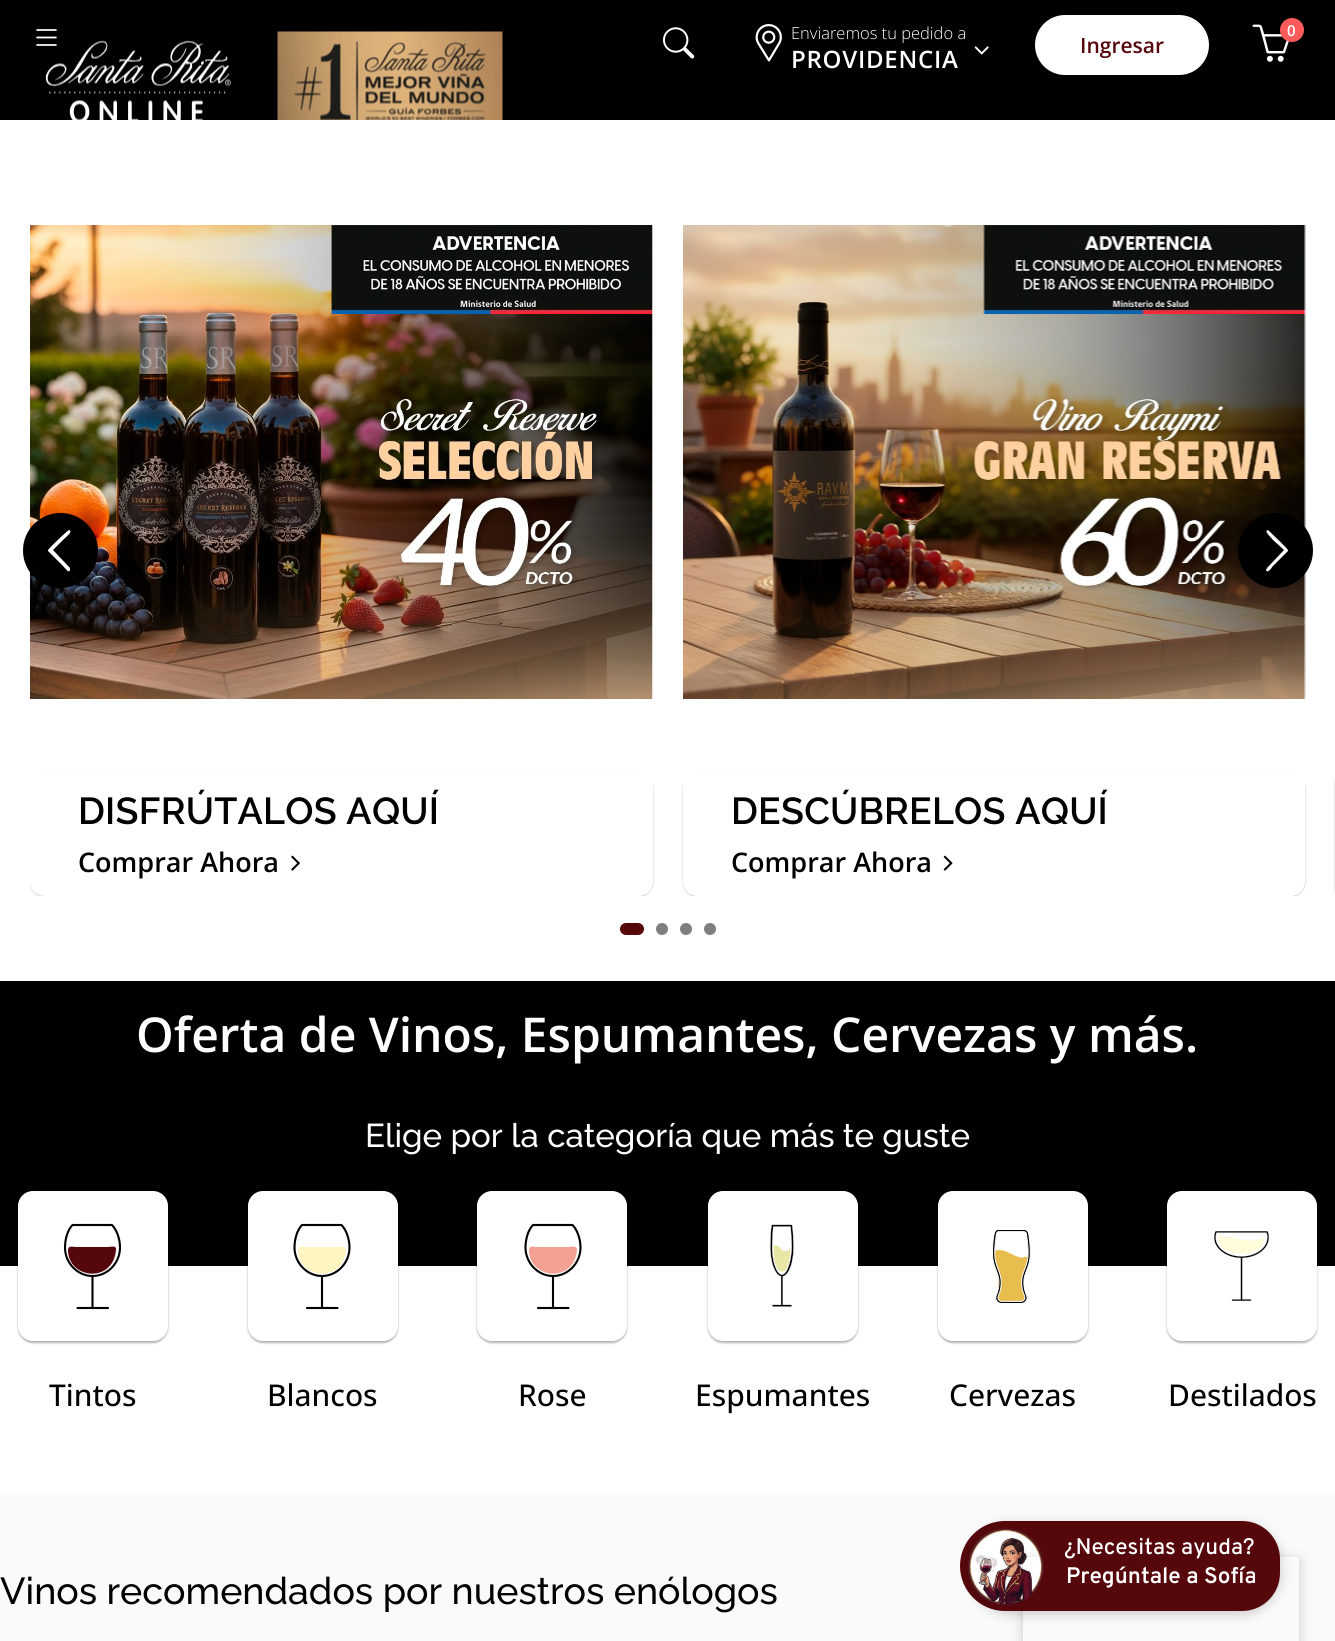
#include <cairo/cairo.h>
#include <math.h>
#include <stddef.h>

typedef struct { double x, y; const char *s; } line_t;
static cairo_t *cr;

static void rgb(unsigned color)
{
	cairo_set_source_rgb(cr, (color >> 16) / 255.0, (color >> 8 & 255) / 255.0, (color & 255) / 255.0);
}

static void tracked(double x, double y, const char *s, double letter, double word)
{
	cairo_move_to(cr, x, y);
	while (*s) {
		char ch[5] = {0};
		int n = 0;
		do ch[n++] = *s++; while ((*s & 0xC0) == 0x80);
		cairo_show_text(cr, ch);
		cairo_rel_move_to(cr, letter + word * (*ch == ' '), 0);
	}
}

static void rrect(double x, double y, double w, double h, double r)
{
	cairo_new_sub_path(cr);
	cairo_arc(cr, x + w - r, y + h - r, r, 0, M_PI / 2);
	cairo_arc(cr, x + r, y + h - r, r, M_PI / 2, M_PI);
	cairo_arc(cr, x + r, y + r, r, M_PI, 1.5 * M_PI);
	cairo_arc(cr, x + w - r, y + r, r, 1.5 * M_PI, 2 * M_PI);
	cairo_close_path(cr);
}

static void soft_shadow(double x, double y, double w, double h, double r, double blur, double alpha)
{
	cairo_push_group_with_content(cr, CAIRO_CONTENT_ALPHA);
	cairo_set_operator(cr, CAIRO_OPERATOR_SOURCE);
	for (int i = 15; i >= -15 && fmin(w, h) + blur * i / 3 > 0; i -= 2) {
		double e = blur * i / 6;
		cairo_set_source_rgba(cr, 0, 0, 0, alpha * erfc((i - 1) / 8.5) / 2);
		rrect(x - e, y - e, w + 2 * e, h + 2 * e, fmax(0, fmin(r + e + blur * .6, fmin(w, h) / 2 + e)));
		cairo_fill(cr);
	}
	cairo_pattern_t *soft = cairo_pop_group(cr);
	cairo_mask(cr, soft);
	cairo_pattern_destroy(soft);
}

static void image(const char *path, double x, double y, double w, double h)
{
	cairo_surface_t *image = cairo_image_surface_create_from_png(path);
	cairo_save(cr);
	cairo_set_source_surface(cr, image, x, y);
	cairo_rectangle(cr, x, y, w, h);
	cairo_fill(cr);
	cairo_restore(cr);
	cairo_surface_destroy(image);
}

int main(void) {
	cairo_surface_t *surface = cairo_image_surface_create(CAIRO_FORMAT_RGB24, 1335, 1641);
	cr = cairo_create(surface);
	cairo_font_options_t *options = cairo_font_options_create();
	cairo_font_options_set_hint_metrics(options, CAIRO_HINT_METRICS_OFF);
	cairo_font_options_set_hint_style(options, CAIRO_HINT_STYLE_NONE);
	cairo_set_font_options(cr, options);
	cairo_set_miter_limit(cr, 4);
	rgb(0x000000);
	cairo_paint(cr);
	image("img/1.png", 36, 29, 21, 17);
	image("img/2.png", 45, 40, 186, 80);
	image("img/3.png", 277, 31, 226, 89);
	image("img/4.png", 663, 27, 32, 32);
	image("img/5.png", 755, 24, 27, 38);
	image("img/6.png", 974, 46, 15, 9);
	rgb(0xffffff);
	rrect(1035, 15, 174, 60, 30);
	cairo_fill(cr);
	image("img/7.png", 1252, 24, 37, 38);
	rgb(0xff5b5b);
	cairo_arc(cr, 1292, 30, 12, 0, 2 * M_PI);
	cairo_fill(cr);
	rgb(0xffffff);
	cairo_rectangle(cr, 0, 120, 1335, 1373);
	cairo_fill(cr);
	image("img/8.png", 30, 225, 623, 474);
	rgb(0x000000);
	cairo_arc(cr, 60.5, 550.5, 37.5, 0, 2 * M_PI);
	cairo_fill(cr);
	rgb(0xffffff);
	cairo_new_path(cr);
	cairo_move_to(cr, 70, 568);
	cairo_line_to(cr, 70, 570);
	cairo_curve_to(cr, 69, 574, 65, 568, 64, 567);
	cairo_line_to(cr, 48, 551);
	cairo_line_to(cr, 48, 550);
	cairo_curve_to(cr, 50, 547, 68, 530, 69, 530);
	cairo_curve_to(cr, 74, 531, 65, 538, 64, 539);
	cairo_line_to(cr, 53, 550);
	cairo_close_path(cr);
	cairo_fill(cr);
	image("img/10.png", 683, 225, 623, 474);
	rgb(0x000000);
	cairo_arc(cr, 1275.5, 550.5, 37.5, 0, 2 * M_PI);
	cairo_fill(cr);
	rgb(0xffffff);
	cairo_new_path(cr);
	cairo_move_to(cr, 1267, 568);
	cairo_line_to(cr, 1284, 550);
	cairo_line_to(cr, 1272, 539);
	cairo_curve_to(cr, 1272, 538, 1263, 531, 1268, 530);
	cairo_curve_to(cr, 1268, 530, 1286, 547, 1288, 550);
	cairo_line_to(cr, 1288, 551);
	cairo_line_to(cr, 1272, 567);
	cairo_curve_to(cr, 1272, 568, 1267, 574, 1266, 570);
	cairo_close_path(cr);
	cairo_fill(cr);
	cairo_save(cr);
	cairo_rectangle(cr, 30, 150, 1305, 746);
	cairo_clip(cr);
	cairo_set_fill_rule(cr, CAIRO_FILL_RULE_EVEN_ODD);
	cairo_new_path(cr);
	cairo_move_to(cr, 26, 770);
	cairo_line_to(cr, 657, 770);
	cairo_line_to(cr, 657, 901);
	cairo_line_to(cr, 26, 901);
	cairo_close_path(cr);
	cairo_move_to(cr, 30, 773);
	cairo_line_to(cr, 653, 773);
	cairo_line_to(cr, 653, 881);
	cairo_curve_to(cr, 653, 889.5, 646.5, 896, 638, 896);
	cairo_line_to(cr, 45, 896);
	cairo_curve_to(cr, 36.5, 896, 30, 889.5, 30, 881);
	cairo_close_path(cr);
	cairo_clip(cr);
	rgb(0x000000);
	soft_shadow(30, 774, 623, 123, 15, 1, 0.25);
	cairo_restore(cr);
	image("img/9.png", 291, 855, 9, 16);
	cairo_save(cr);
	cairo_rectangle(cr, 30, 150, 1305, 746);
	cairo_clip(cr);
	cairo_set_fill_rule(cr, CAIRO_FILL_RULE_EVEN_ODD);
	cairo_new_path(cr);
	cairo_move_to(cr, 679, 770);
	cairo_line_to(cr, 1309, 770);
	cairo_line_to(cr, 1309, 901);
	cairo_line_to(cr, 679, 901);
	cairo_close_path(cr);
	cairo_move_to(cr, 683, 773);
	cairo_line_to(cr, 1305, 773);
	cairo_line_to(cr, 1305, 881);
	cairo_curve_to(cr, 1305, 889.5, 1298.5, 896, 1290, 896);
	cairo_line_to(cr, 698, 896);
	cairo_curve_to(cr, 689.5, 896, 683, 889.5, 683, 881);
	cairo_close_path(cr);
	cairo_clip(cr);
	rgb(0x000000);
	soft_shadow(683, 774, 622, 123, 15, 1, 0.25);
	cairo_restore(cr);
	image("img/11.png", 943, 855, 10, 16);
	rgb(0x000000);
	soft_shadow(1335, 774, 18, 123, 15, 1, 0.25);
	rgb(0x56070c);
	rrect(620, 923, 24, 12, 6);
	cairo_fill(cr);
	rgb(0x7f7f7f);
	cairo_arc(cr, 662, 929, 6, 0, 2 * M_PI);
	cairo_fill(cr);
	cairo_arc(cr, 686, 929, 6, 0, 2 * M_PI);
	cairo_fill(cr);
	cairo_arc(cr, 710, 929, 6, 0, 2 * M_PI);
	cairo_fill(cr);
	rgb(0x000000);
	cairo_rectangle(cr, 0, 981, 1335, 285);
	cairo_fill(cr);
	rgb(0x000000);
	soft_shadow(18, 1193, 150, 150, 15, 1, 0.3);
	rgb(0xffffff);
	rrect(18, 1191, 150, 150, 15);
	cairo_fill(cr);
	cairo_new_path(cr);
	cairo_move_to(cr, 65, 1247.5);
	cairo_curve_to(cr, 65, 1239.5, 67.5, 1230, 72.5, 1225);
	cairo_line_to(cr, 112, 1225);
	cairo_curve_to(cr, 117, 1230, 120, 1239.5, 120, 1247.5);
	cairo_curve_to(cr, 120, 1263, 107.5, 1276, 92.5, 1276);
	cairo_curve_to(cr, 77.5, 1276, 65, 1263, 65, 1247.5);
	cairo_close_path(cr);
	rgb(0x000000);
	cairo_set_line_width(cr, 2.1);
	cairo_set_line_cap(cr, CAIRO_LINE_CAP_ROUND);
	cairo_set_line_join(cr, CAIRO_LINE_JOIN_ROUND);
	cairo_stroke(cr);
	cairo_new_path(cr);
	cairo_move_to(cr, 92.5, 1276);
	cairo_line_to(cr, 92.5, 1308);
	cairo_move_to(cr, 77.5, 1308);
	cairo_line_to(cr, 108, 1308);
	cairo_stroke(cr);
	rgb(0x56070c);
	cairo_new_path(cr);
	cairo_move_to(cr, 68, 1250);
	cairo_curve_to(cr, 68, 1279, 113, 1284, 116, 1250);
	cairo_curve_to(cr, 117, 1245, 111, 1247, 107, 1247);
	cairo_line_to(cr, 77, 1247);
	cairo_curve_to(cr, 73, 1247, 68, 1245, 68, 1250);
	cairo_close_path(cr);
	cairo_fill(cr);
	rgb(0x000000);
	soft_shadow(248, 1193, 150, 150, 15, 1, 0.3);
	rgb(0xffffff);
	rrect(248, 1191, 150, 150, 15);
	cairo_fill(cr);
	cairo_new_path(cr);
	cairo_move_to(cr, 294.5, 1247.5);
	cairo_curve_to(cr, 294.5, 1239.5, 297, 1230, 302, 1225);
	cairo_line_to(cr, 341.5, 1225);
	cairo_curve_to(cr, 346.5, 1230, 349.5, 1239.5, 349.5, 1247.5);
	cairo_curve_to(cr, 349.5, 1263, 337, 1276, 322, 1276);
	cairo_curve_to(cr, 307, 1276, 294.5, 1263, 294.5, 1247.5);
	cairo_close_path(cr);
	rgb(0x000000);
	cairo_stroke(cr);
	cairo_new_path(cr);
	cairo_move_to(cr, 322, 1276);
	cairo_line_to(cr, 322, 1308);
	cairo_move_to(cr, 307, 1308);
	cairo_line_to(cr, 337.5, 1308);
	cairo_stroke(cr);
	rgb(0xfff5c0);
	cairo_new_path(cr);
	cairo_move_to(cr, 298, 1250);
	cairo_curve_to(cr, 298, 1279, 343, 1284, 346, 1250);
	cairo_curve_to(cr, 346, 1245, 340, 1247, 337, 1247);
	cairo_line_to(cr, 307, 1247);
	cairo_curve_to(cr, 302, 1247, 298, 1245, 298, 1250);
	cairo_close_path(cr);
	cairo_fill(cr);
	rgb(0x000000);
	soft_shadow(477, 1193, 150, 150, 15, 1, 0.3);
	rgb(0xffffff);
	rrect(477, 1191, 150, 150, 15);
	cairo_fill(cr);
	cairo_new_path(cr);
	cairo_move_to(cr, 525.5, 1247.5);
	cairo_curve_to(cr, 525.5, 1239.5, 528, 1230, 533, 1225);
	cairo_line_to(cr, 572.5, 1225);
	cairo_curve_to(cr, 577.5, 1230, 580.5, 1239.5, 580.5, 1247.5);
	cairo_curve_to(cr, 580.5, 1263, 568, 1276, 553, 1276);
	cairo_curve_to(cr, 538, 1276, 525.5, 1263, 525.5, 1247.5);
	cairo_close_path(cr);
	rgb(0x000000);
	cairo_stroke(cr);
	cairo_new_path(cr);
	cairo_move_to(cr, 553, 1276);
	cairo_line_to(cr, 553, 1308);
	cairo_move_to(cr, 538, 1308);
	cairo_line_to(cr, 568.5, 1308);
	cairo_stroke(cr);
	rgb(0xf4a193);
	cairo_new_path(cr);
	cairo_move_to(cr, 529, 1250);
	cairo_curve_to(cr, 529, 1279, 574, 1284, 577, 1250);
	cairo_curve_to(cr, 577, 1245, 571, 1247, 568, 1247);
	cairo_line_to(cr, 538, 1247);
	cairo_curve_to(cr, 533, 1247, 529, 1245, 529, 1250);
	cairo_close_path(cr);
	cairo_fill(cr);
	rgb(0x000000);
	soft_shadow(708, 1193, 150, 150, 15, 1, 0.3);
	rgb(0xffffff);
	rrect(708, 1191, 150, 150, 15);
	cairo_fill(cr);
	image("img/12.png", 770, 1224, 24, 83);
	rgb(0x000000);
	soft_shadow(938, 1193, 150, 150, 15, 1, 0.3);
	rgb(0xffffff);
	rrect(938, 1191, 150, 150, 15);
	cairo_fill(cr);
	image("img/13.png", 992, 1229, 39, 75);
	rgb(0x000000);
	soft_shadow(1167, 1193, 150, 150, 15, 1, 0.3);
	rgb(0xffffff);
	rrect(1167, 1191, 150, 150, 15);
	cairo_fill(cr);
	image("img/14.png", 1214, 1231, 55, 70);
	rgb(0xfafafa);
	cairo_rectangle(cr, 0, 1493, 1335, 148);
	cairo_fill(cr);
	rgb(0x56070c);
	cairo_arc(cr, 1005, 1566, 45, 0, 2 * M_PI);
	cairo_fill(cr);
	rgb(0x000000);
	soft_shadow(972, 1524, 308, 90, 38, 6, 0.2);
	rgb(0x56070c);
	rrect(972, 1521, 308, 90, 38);
	cairo_fill(cr);
	image("img/15.png", 967, 1528, 77, 77);
	cairo_save(cr);
	cairo_set_fill_rule(cr, CAIRO_FILL_RULE_EVEN_ODD);
	cairo_new_path(cr);
	cairo_move_to(cr, 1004, 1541);
	cairo_line_to(cr, 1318, 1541);
	cairo_line_to(cr, 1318, 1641);
	cairo_line_to(cr, 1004, 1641);
	cairo_close_path(cr);
	cairo_move_to(cr, 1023, 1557);
	cairo_line_to(cr, 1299, 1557);
	cairo_line_to(cr, 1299, 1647);
	cairo_line_to(cr, 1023, 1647);
	cairo_close_path(cr);
	cairo_clip(cr);
	rgb(0x000000);
	soft_shadow(1023, 1560, 276, 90, 0, 6, 0.2);
	cairo_restore(cr);
	cairo_select_font_face(cr, "Open Sans Light", CAIRO_FONT_SLANT_NORMAL, CAIRO_FONT_WEIGHT_NORMAL);
	cairo_set_font_size(cr, 16.5);
	rgb(0xffffff);
	cairo_move_to(cr, 791, 39);
	cairo_show_text(cr, "Enviaremos tu pedido a");
	cairo_select_font_face(cr, "Open Sans SemiBold", CAIRO_FONT_SLANT_NORMAL, CAIRO_FONT_WEIGHT_NORMAL);
	cairo_set_font_size(cr, 24);
	tracked(791, 68, "PROVIDENCIA", 0.75, 0);
	cairo_set_font_size(cr, 21);
	rgb(0x56070c);
	cairo_move_to(cr, 1080, 53);
	cairo_show_text(cr, "Ingresar");
	cairo_set_font_size(cr, 15);
	rgb(0xffffff);
	cairo_move_to(cr, 1287, 36);
	cairo_show_text(cr, "0");
	cairo_select_font_face(cr, "Raleway SemiBold", CAIRO_FONT_SLANT_NORMAL, CAIRO_FONT_WEIGHT_NORMAL);
	cairo_set_font_size(cr, 37.5);
	rgb(0x000000);
	tracked(78, 824, "DISFRÚTALOS AQUÍ", 0.25, 0);
	cairo_select_font_face(cr, "Open Sans SemiBold", CAIRO_FONT_SLANT_NORMAL, CAIRO_FONT_WEIGHT_NORMAL);
	cairo_set_font_size(cr, 27);
	cairo_move_to(cr, 78, 872);
	cairo_show_text(cr, "Comprar Ahora");
	cairo_select_font_face(cr, "Raleway SemiBold", CAIRO_FONT_SLANT_NORMAL, CAIRO_FONT_WEIGHT_NORMAL);
	cairo_set_font_size(cr, 37.5);
	tracked(731, 824, "DESCÚBRELOS AQUÍ", 0.25, 0);
	cairo_select_font_face(cr, "Open Sans SemiBold", CAIRO_FONT_SLANT_NORMAL, CAIRO_FONT_WEIGHT_NORMAL);
	cairo_set_font_size(cr, 27);
	cairo_move_to(cr, 731, 872);
	cairo_show_text(cr, "Comprar Ahora");
	cairo_set_font_size(cr, 48);
	rgb(0xffffff);
	cairo_move_to(cr, 136, 1052);
	cairo_show_text(cr, "Oferta de Vinos, Espumantes, Cervezas y más.");
	cairo_select_font_face(cr, "Raleway Medium", CAIRO_FONT_SLANT_NORMAL, CAIRO_FONT_WEIGHT_NORMAL);
	cairo_set_font_size(cr, 33);
	cairo_move_to(cr, 365, 1147);
	cairo_show_text(cr, "Elige por la categoría que más te guste");
	cairo_select_font_face(cr, "Open Sans Medium", CAIRO_FONT_SLANT_NORMAL, CAIRO_FONT_WEIGHT_NORMAL);
	cairo_set_font_size(cr, 30);
	rgb(0x000000);
	{
		static const line_t items[] = {
			{49, 1406, "Tintos"},
			{267, 1406, "Blancos"},
			{518, 1406, "Rose"},
			{695, 1406, "Espumantes"},
			{949, 1406, "Cervezas"},
			{1168, 1406, "Destilados"},
		};
		for (size_t i = 0; i < sizeof items / sizeof *items; i++) {
			cairo_move_to(cr, items[i].x, items[i].y);
			cairo_show_text(cr, items[i].s);
		}
	}
	cairo_select_font_face(cr, "Raleway Medium", CAIRO_FONT_SLANT_NORMAL, CAIRO_FONT_WEIGHT_NORMAL);
	cairo_set_font_size(cr, 37.5);
	cairo_move_to(cr, 0, 1604);
	cairo_show_text(cr, "Vinos recomendados por nuestros enólogos");
	cairo_select_font_face(cr, "Overpass Medium", CAIRO_FONT_SLANT_NORMAL, CAIRO_FONT_WEIGHT_NORMAL);
	cairo_set_font_size(cr, 22.5);
	rgb(0xffffff);
	cairo_move_to(cr, 1064, 1554);
	cairo_show_text(cr, "¿Necesitas ayuda?");
	cairo_select_font_face(cr, "Overpass SemiBold", CAIRO_FONT_SLANT_NORMAL, CAIRO_FONT_WEIGHT_NORMAL);
	cairo_move_to(cr, 1066, 1583);
	cairo_show_text(cr, "Pregúntale a Sofía");
	cairo_surface_write_to_png(surface, "page.png");
	cairo_font_options_destroy(options);
	cairo_destroy(cr);
	cairo_surface_destroy(surface);
	return 0;
}
